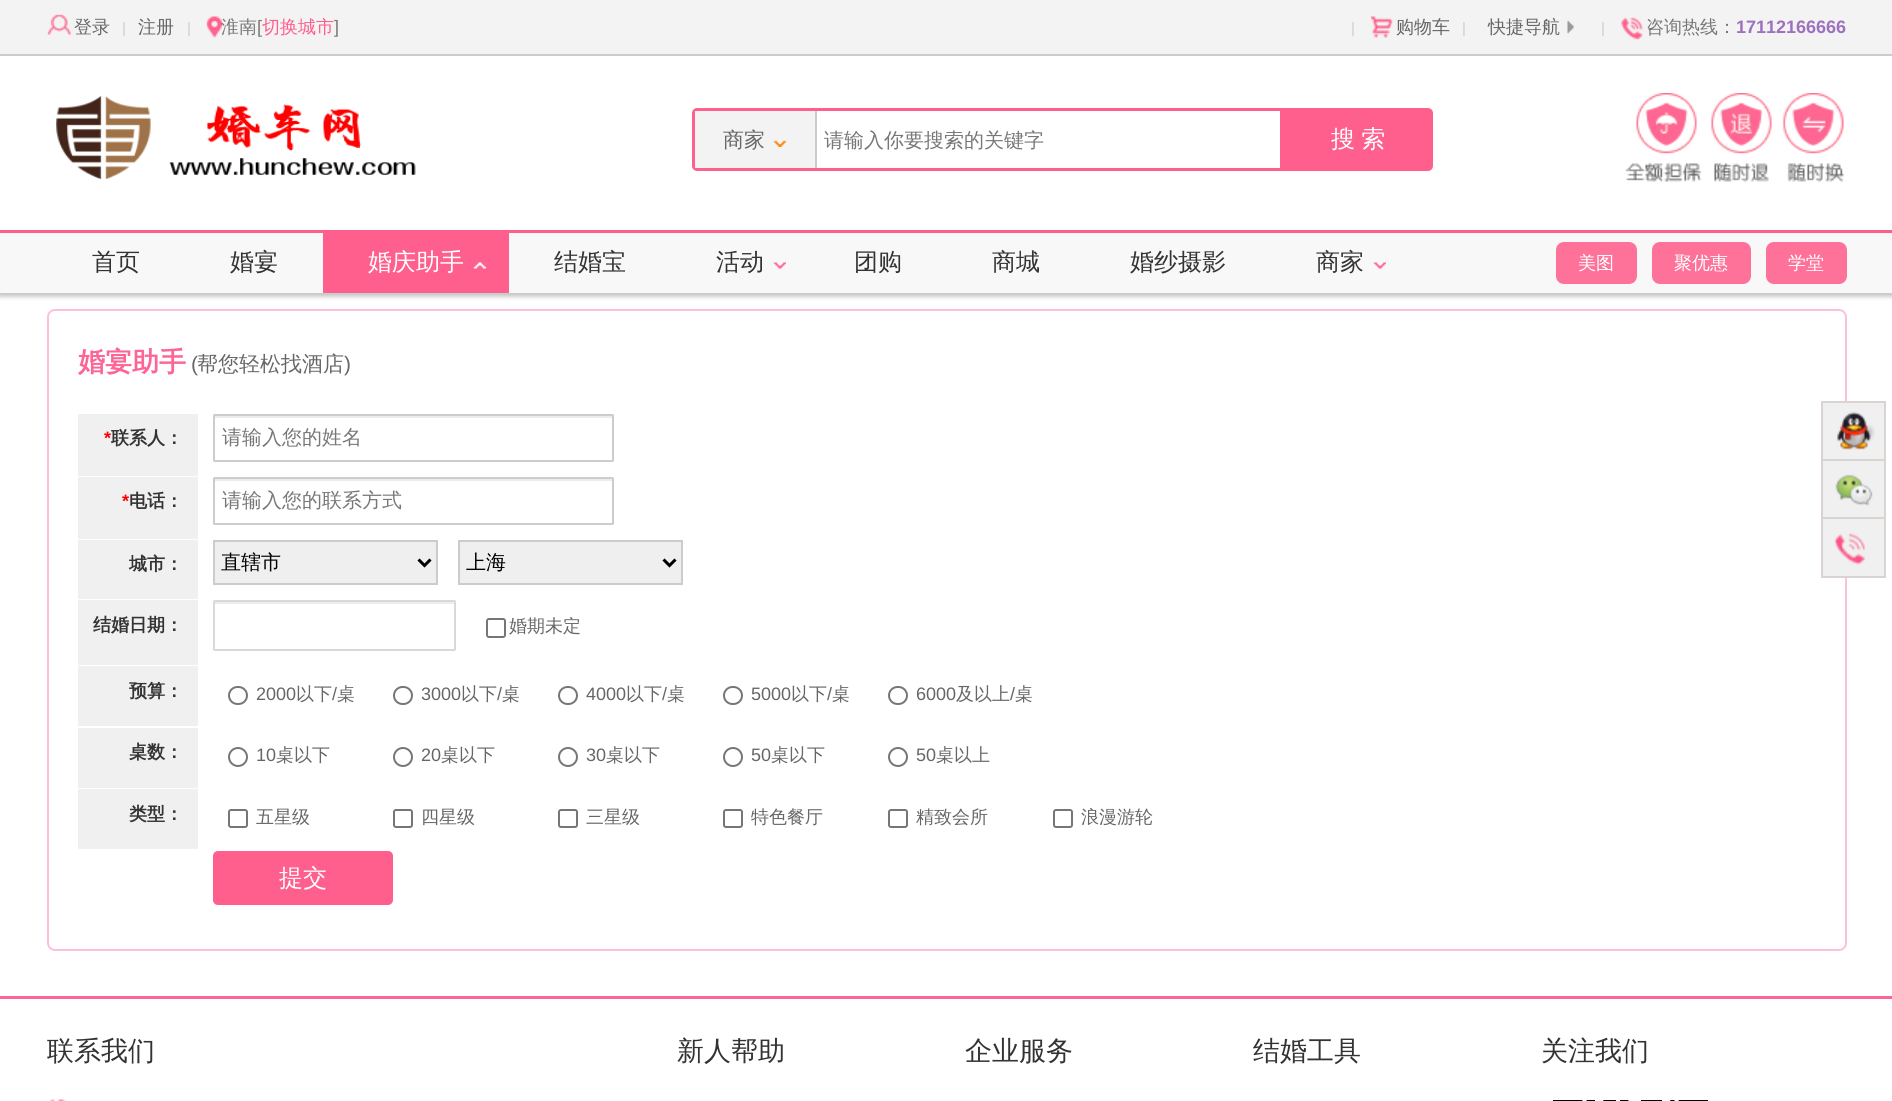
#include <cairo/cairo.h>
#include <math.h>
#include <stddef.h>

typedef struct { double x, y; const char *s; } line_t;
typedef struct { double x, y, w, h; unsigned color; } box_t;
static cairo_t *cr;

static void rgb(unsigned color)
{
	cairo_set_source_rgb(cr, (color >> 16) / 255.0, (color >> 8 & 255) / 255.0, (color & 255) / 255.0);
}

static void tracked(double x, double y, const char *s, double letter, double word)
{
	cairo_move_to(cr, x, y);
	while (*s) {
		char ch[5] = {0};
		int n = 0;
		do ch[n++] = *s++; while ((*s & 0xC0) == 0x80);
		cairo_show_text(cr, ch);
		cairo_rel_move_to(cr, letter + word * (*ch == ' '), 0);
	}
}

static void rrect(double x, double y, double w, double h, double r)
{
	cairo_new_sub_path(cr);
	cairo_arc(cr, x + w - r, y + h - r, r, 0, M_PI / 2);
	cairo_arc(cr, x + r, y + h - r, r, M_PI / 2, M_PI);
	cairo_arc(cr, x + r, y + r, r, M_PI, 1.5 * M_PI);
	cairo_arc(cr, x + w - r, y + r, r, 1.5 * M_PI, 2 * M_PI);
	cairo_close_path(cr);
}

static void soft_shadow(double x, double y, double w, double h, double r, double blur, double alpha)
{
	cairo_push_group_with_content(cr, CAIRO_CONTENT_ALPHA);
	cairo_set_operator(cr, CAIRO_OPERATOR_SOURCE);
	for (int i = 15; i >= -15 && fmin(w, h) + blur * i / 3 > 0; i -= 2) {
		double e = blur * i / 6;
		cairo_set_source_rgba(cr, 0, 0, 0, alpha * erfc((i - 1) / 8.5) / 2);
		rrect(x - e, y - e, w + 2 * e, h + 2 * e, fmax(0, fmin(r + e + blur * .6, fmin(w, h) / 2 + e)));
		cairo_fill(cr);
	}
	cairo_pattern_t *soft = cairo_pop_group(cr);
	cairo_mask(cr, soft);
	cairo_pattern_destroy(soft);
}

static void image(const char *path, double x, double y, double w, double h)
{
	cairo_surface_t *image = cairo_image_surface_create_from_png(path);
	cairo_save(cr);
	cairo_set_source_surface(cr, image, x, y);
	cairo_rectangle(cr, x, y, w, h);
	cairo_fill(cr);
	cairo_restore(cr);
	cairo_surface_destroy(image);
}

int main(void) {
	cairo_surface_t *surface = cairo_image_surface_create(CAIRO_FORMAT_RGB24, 1892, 1101);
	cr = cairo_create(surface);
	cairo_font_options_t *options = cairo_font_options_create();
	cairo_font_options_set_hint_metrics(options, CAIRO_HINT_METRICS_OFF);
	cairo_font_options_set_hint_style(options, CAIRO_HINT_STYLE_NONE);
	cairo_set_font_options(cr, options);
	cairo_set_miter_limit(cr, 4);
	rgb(0xffffff);
	cairo_paint(cr);
	rgb(0xf3f3f3);
	cairo_rectangle(cr, 0, 0, 1892, 54);
	cairo_fill(cr);
	rgb(0xcccccc);
	cairo_rectangle(cr, 0, 54, 1892, 2);
	cairo_fill(cr);
	image("img/1.png", 47, 14, 24, 21);
	image("img/2.png", 206, 16, 16, 22);
	image("img/3.png", 1370, 16, 23, 22);
	image("img/4.png", 1567, 20, 7, 14);
	image("img/5.png", 1621, 17, 22, 23);
	image("img/6.png", 56, 96, 360, 83);
	rrect(693.5, 109.5, 738, 60, 3.5);
	rgb(0xff5f8c);
	cairo_set_line_width(cr, 3);
	cairo_stroke(cr);
	rgb(0xf3f3f3);
	cairo_rectangle(cr, 695, 111, 120, 57);
	cairo_fill(cr);
	rgb(0xcccccc);
	cairo_rectangle(cr, 815, 111, 2, 57);
	cairo_fill(cr);
	image("img/7.png", 773, 140, 13, 7);
	rgb(0xff5f8c);
	cairo_rectangle(cr, 1280, 111, 150, 57);
	cairo_fill(cr);
	image("img/8.png", 1625, 93, 219, 89);
	rgb(0xcccccc);
	soft_shadow(0, 233, 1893, 64, 0, 2, 1);
	{
		static const box_t items[] = {
			{0, 233, 1892, 60, 0xf8f8f8},
			{0, 230, 1892, 3, 0xff5f8c},
			{0, 293, 1892, 2, 0xcccccc},
			{323, 233, 186, 60, 0xff5f8c},
		};
		for (size_t i = 0; i < sizeof items / sizeof *items; i++) {
			rgb(items[i].color);
			cairo_rectangle(cr, items[i].x, items[i].y, items[i].w, items[i].h);
			cairo_fill(cr);
		}
	}
	image("img/9.png", 473, 262, 13, 7);
	image("img/10.png", 773, 262, 13, 7);
	image("img/11.png", 1373, 262, 13, 7);
	rgb(0xfe729a);
	rrect(1556, 242, 81, 42, 8);
	cairo_fill(cr);
	rrect(1652, 242, 99, 42, 8);
	cairo_fill(cr);
	rrect(1766, 242, 81, 42, 8);
	cairo_fill(cr);
	rrect(48, 310, 1798, 640, 7);
	rgb(0xfebfdf);
	cairo_set_line_width(cr, 2);
	cairo_stroke(cr);
	rgb(0xf0f0f0);
	cairo_rectangle(cr, 78, 414, 120, 62);
	cairo_fill(cr);
	rgb(0xececec);
	cairo_rectangle(cr, 215, 416, 397, 2);
	cairo_fill(cr);
	rrect(214, 415, 399, 46, 0.5);
	rgb(0xcccccc);
	cairo_stroke(cr);
	rgb(0xf0f0f0);
	cairo_rectangle(cr, 78, 477, 120, 62);
	cairo_fill(cr);
	rgb(0xececec);
	cairo_rectangle(cr, 215, 479, 397, 2);
	cairo_fill(cr);
	rrect(214, 478, 399, 46, 0.5);
	rgb(0xcccccc);
	cairo_stroke(cr);
	rgb(0xf0f0f0);
	cairo_rectangle(cr, 78, 540, 120, 59);
	cairo_fill(cr);
	rgb(0xefefef);
	cairo_rectangle(cr, 214, 541, 223, 43);
	cairo_fill_preserve(cr);
	rgb(0xcccccc);
	cairo_stroke(cr);
	cairo_new_path(cr);
	cairo_move_to(cr, 418.5, 559.5);
	cairo_line_to(cr, 424.5, 565.5);
	cairo_line_to(cr, 430.5, 559.5);
	rgb(0x000000);
	cairo_set_line_width(cr, 3);
	cairo_stroke(cr);
	rgb(0xefefef);
	cairo_rectangle(cr, 459, 541, 223, 43);
	cairo_fill_preserve(cr);
	rgb(0xcccccc);
	cairo_set_line_width(cr, 2);
	cairo_stroke(cr);
	cairo_new_path(cr);
	cairo_move_to(cr, 663.5, 559.5);
	cairo_line_to(cr, 669.5, 565.5);
	cairo_line_to(cr, 675.5, 559.5);
	rgb(0x000000);
	cairo_set_line_width(cr, 3);
	cairo_stroke(cr);
	rgb(0xf0f0f0);
	cairo_rectangle(cr, 78, 600, 120, 65);
	cairo_fill(cr);
	rgb(0xececec);
	cairo_rectangle(cr, 215, 602, 240, 2);
	cairo_fill(cr);
	rrect(214, 601, 241, 49, 0.5);
	rgb(0xd9d9d9);
	cairo_set_line_width(cr, 2);
	cairo_stroke(cr);
	rrect(487, 619, 18, 18, 2);
	rgb(0x767676);
	cairo_stroke(cr);
	rgb(0xf0f0f0);
	cairo_rectangle(cr, 78, 666, 120, 60);
	cairo_fill(cr);
	rrect(229, 687, 18, 17, 8.5);
	rgb(0x767676);
	cairo_stroke(cr);
	rrect(394, 687, 18, 17, 8.5);
	cairo_stroke(cr);
	rrect(559, 687, 18, 17, 8.5);
	cairo_stroke(cr);
	rrect(724, 687, 18, 17, 8.5);
	cairo_stroke(cr);
	rrect(889, 687, 18, 17, 8.5);
	cairo_stroke(cr);
	rgb(0xf0f0f0);
	cairo_rectangle(cr, 78, 728, 120, 60);
	cairo_fill(cr);
	cairo_arc(cr, 238, 757, 9, 0, 2 * M_PI);
	rgb(0x767676);
	cairo_stroke(cr);
	cairo_arc(cr, 403, 757, 9, 0, 2 * M_PI);
	cairo_stroke(cr);
	cairo_arc(cr, 568, 757, 9, 0, 2 * M_PI);
	cairo_stroke(cr);
	cairo_arc(cr, 733, 757, 9, 0, 2 * M_PI);
	cairo_stroke(cr);
	cairo_arc(cr, 898, 757, 9, 0, 2 * M_PI);
	cairo_stroke(cr);
	rgb(0xf0f0f0);
	cairo_rectangle(cr, 78, 789, 120, 60);
	cairo_fill(cr);
	rrect(229, 810, 18, 17, 2);
	rgb(0x767676);
	cairo_stroke(cr);
	rrect(394, 810, 18, 17, 2);
	cairo_stroke(cr);
	rrect(559, 810, 18, 17, 2);
	cairo_stroke(cr);
	rrect(724, 810, 18, 17, 2);
	cairo_stroke(cr);
	rrect(889, 810, 18, 17, 2);
	cairo_stroke(cr);
	rrect(1054, 810, 18, 17, 2);
	cairo_stroke(cr);
	rgb(0xff5f8c);
	rrect(213, 851, 180, 54, 5);
	cairo_fill(cr);
	{
		static const box_t items[] = {
			{0, 996, 1892, 3, 0xfd6596},
			{1823, 403, 61, 56, 0xf0f0f0},
			{1821, 401, 65, 2, 0xd9d4d1},
			{1884, 401, 2, 58, 0xd9d4d1},
			{1821, 401, 2, 58, 0xd9d4d1},
		};
		for (size_t i = 0; i < sizeof items / sizeof *items; i++) {
			rgb(items[i].color);
			cairo_rectangle(cr, items[i].x, items[i].y, items[i].w, items[i].h);
			cairo_fill(cr);
		}
	}
	image("img/12.png", 1837, 411, 38, 39);
	rgb(0xf0f0f0);
	cairo_rectangle(cr, 1822, 460, 63, 58);
	cairo_fill_preserve(cr);
	rgb(0xd9d4d1);
	cairo_stroke(cr);
	image("img/13.png", 1835, 474, 38, 32);
	{
		static const box_t items[] = {
			{1823, 519, 61, 57, 0xf0f0f0},
			{1884, 519, 2, 59, 0xd9d4d1},
			{1821, 576, 65, 2, 0xd9d4d1},
			{1821, 519, 2, 59, 0xd9d4d1},
		};
		for (size_t i = 0; i < sizeof items / sizeof *items; i++) {
			rgb(items[i].color);
			cairo_rectangle(cr, items[i].x, items[i].y, items[i].w, items[i].h);
			cairo_fill(cr);
		}
	}
	image("img/14.png", 1834, 533, 32, 32);
	image("img/15.png", 49, 1099, 18, 2);
	image("img/16.png", 1553, 1100, 155, 1);
	cairo_select_font_face(cr, "WenQuanYi Zen Hei Medium", CAIRO_FONT_SLANT_NORMAL, CAIRO_FONT_WEIGHT_NORMAL);
	cairo_set_font_size(cr, 18);
	rgb(0x666666);
	cairo_move_to(cr, 74, 33);
	cairo_show_text(cr, "登录");
	cairo_select_font_face(cr, "Liberation Sans", CAIRO_FONT_SLANT_NORMAL, CAIRO_FONT_WEIGHT_NORMAL);
	cairo_set_font_size(cr, 15);
	rgb(0xcccccc);
	cairo_move_to(cr, 122, 33);
	cairo_show_text(cr, "|");
	cairo_select_font_face(cr, "WenQuanYi Zen Hei Medium", CAIRO_FONT_SLANT_NORMAL, CAIRO_FONT_WEIGHT_NORMAL);
	cairo_set_font_size(cr, 18);
	rgb(0x666666);
	cairo_move_to(cr, 138, 33);
	cairo_show_text(cr, "注册");
	cairo_select_font_face(cr, "Liberation Sans", CAIRO_FONT_SLANT_NORMAL, CAIRO_FONT_WEIGHT_NORMAL);
	cairo_set_font_size(cr, 15);
	rgb(0xcccccc);
	cairo_move_to(cr, 187, 33);
	cairo_show_text(cr, "|");
	cairo_select_font_face(cr, "WenQuanYi Zen Hei Medium", CAIRO_FONT_SLANT_NORMAL, CAIRO_FONT_WEIGHT_NORMAL);
	cairo_set_font_size(cr, 18);
	rgb(0x777777);
	cairo_move_to(cr, 221, 33);
	cairo_show_text(cr, "淮南");
	cairo_select_font_face(cr, "Liberation Sans", CAIRO_FONT_SLANT_NORMAL, CAIRO_FONT_WEIGHT_NORMAL);
	cairo_move_to(cr, 257, 33);
	cairo_show_text(cr, "[");
	cairo_select_font_face(cr, "WenQuanYi Zen Hei Medium", CAIRO_FONT_SLANT_NORMAL, CAIRO_FONT_WEIGHT_NORMAL);
	rgb(0xff5f8c);
	cairo_move_to(cr, 262, 33);
	cairo_show_text(cr, "切换城市");
	cairo_select_font_face(cr, "Liberation Sans", CAIRO_FONT_SLANT_NORMAL, CAIRO_FONT_WEIGHT_NORMAL);
	rgb(0x777777);
	cairo_move_to(cr, 334, 33);
	cairo_show_text(cr, "]");
	cairo_set_font_size(cr, 15);
	rgb(0xcccccc);
	cairo_move_to(cr, 1351, 33);
	cairo_show_text(cr, "|");
	cairo_select_font_face(cr, "WenQuanYi Zen Hei Medium", CAIRO_FONT_SLANT_NORMAL, CAIRO_FONT_WEIGHT_NORMAL);
	cairo_set_font_size(cr, 18);
	rgb(0x666666);
	cairo_move_to(cr, 1396, 33);
	cairo_show_text(cr, "购物车");
	cairo_select_font_face(cr, "Liberation Sans", CAIRO_FONT_SLANT_NORMAL, CAIRO_FONT_WEIGHT_NORMAL);
	cairo_set_font_size(cr, 15);
	rgb(0xcccccc);
	cairo_move_to(cr, 1462, 33);
	cairo_show_text(cr, "|");
	cairo_select_font_face(cr, "WenQuanYi Zen Hei Medium", CAIRO_FONT_SLANT_NORMAL, CAIRO_FONT_WEIGHT_NORMAL);
	cairo_set_font_size(cr, 18);
	rgb(0x666666);
	cairo_move_to(cr, 1488, 33);
	cairo_show_text(cr, "快捷导航");
	cairo_select_font_face(cr, "Liberation Sans", CAIRO_FONT_SLANT_NORMAL, CAIRO_FONT_WEIGHT_NORMAL);
	cairo_set_font_size(cr, 15);
	rgb(0xcccccc);
	cairo_move_to(cr, 1601, 33);
	cairo_show_text(cr, "|");
	cairo_select_font_face(cr, "WenQuanYi Zen Hei Medium", CAIRO_FONT_SLANT_NORMAL, CAIRO_FONT_WEIGHT_NORMAL);
	cairo_set_font_size(cr, 18);
	rgb(0x777777);
	cairo_move_to(cr, 1646, 33);
	cairo_show_text(cr, "咨询热线：");
	cairo_select_font_face(cr, "Liberation Sans", CAIRO_FONT_SLANT_NORMAL, CAIRO_FONT_WEIGHT_BOLD);
	rgb(0x9d71c0);
	cairo_move_to(cr, 1736, 33);
	cairo_show_text(cr, "17112166666");
	cairo_select_font_face(cr, "WenQuanYi Zen Hei Medium", CAIRO_FONT_SLANT_NORMAL, CAIRO_FONT_WEIGHT_NORMAL);
	cairo_set_font_size(cr, 21);
	rgb(0x666666);
	cairo_move_to(cr, 723, 147);
	cairo_show_text(cr, "商家");
	cairo_set_font_size(cr, 20);
	rgb(0x777777);
	cairo_move_to(cr, 824, 147);
	cairo_show_text(cr, "请输入你要搜索的关键字");
	cairo_set_font_size(cr, 24);
	rgb(0xffffff);
	tracked(1331, 147, "搜 索", 0, -1);
	rgb(0x333333);
	cairo_move_to(cr, 92, 270);
	cairo_show_text(cr, "首页");
	cairo_move_to(cr, 230, 270);
	cairo_show_text(cr, "婚宴");
	rgb(0xffffff);
	cairo_move_to(cr, 368, 270);
	cairo_show_text(cr, "婚庆助手");
	rgb(0x333333);
	{
		static const line_t items[] = {
			{554, 270, "结婚宝"},
			{716, 270, "活动"},
			{854, 270, "团购"},
			{992, 270, "商城"},
			{1130, 270, "婚纱摄影"},
			{1316, 270, "商家"},
		};
		for (size_t i = 0; i < sizeof items / sizeof *items; i++) {
			cairo_move_to(cr, items[i].x, items[i].y);
			cairo_show_text(cr, items[i].s);
		}
	}
	cairo_set_font_size(cr, 18);
	rgb(0xffffff);
	{
		static const line_t items[] = {
			{1578, 269, "美图"},
			{1674, 269, "聚优惠"},
			{1788, 269, "学堂"},
		};
		for (size_t i = 0; i < sizeof items / sizeof *items; i++) {
			cairo_move_to(cr, items[i].x, items[i].y);
			cairo_show_text(cr, items[i].s);
		}
	}
	cairo_select_font_face(cr, "WenQuanYi Zen Hei", CAIRO_FONT_SLANT_NORMAL, CAIRO_FONT_WEIGHT_BOLD);
	cairo_set_font_size(cr, 27);
	rgb(0xfd6596);
	cairo_move_to(cr, 78, 371);
	cairo_show_text(cr, "婚宴助手");
	cairo_select_font_face(cr, "Liberation Sans", CAIRO_FONT_SLANT_NORMAL, CAIRO_FONT_WEIGHT_NORMAL);
	cairo_set_font_size(cr, 21);
	rgb(0x666666);
	cairo_move_to(cr, 191, 371);
	cairo_show_text(cr, "(");
	cairo_select_font_face(cr, "WenQuanYi Zen Hei Medium", CAIRO_FONT_SLANT_NORMAL, CAIRO_FONT_WEIGHT_NORMAL);
	cairo_move_to(cr, 197, 371);
	cairo_show_text(cr, "帮您轻松找酒店");
	cairo_select_font_face(cr, "Liberation Sans", CAIRO_FONT_SLANT_NORMAL, CAIRO_FONT_WEIGHT_NORMAL);
	cairo_move_to(cr, 344, 371);
	cairo_show_text(cr, ")");
	cairo_select_font_face(cr, "Liberation Sans", CAIRO_FONT_SLANT_NORMAL, CAIRO_FONT_WEIGHT_BOLD);
	cairo_set_font_size(cr, 18);
	rgb(0xff0000);
	cairo_move_to(cr, 104, 444);
	cairo_show_text(cr, "*");
	cairo_select_font_face(cr, "WenQuanYi Zen Hei", CAIRO_FONT_SLANT_NORMAL, CAIRO_FONT_WEIGHT_BOLD);
	rgb(0x333333);
	cairo_move_to(cr, 111, 444);
	cairo_show_text(cr, "联系人：");
	cairo_select_font_face(cr, "WenQuanYi Zen Hei Medium", CAIRO_FONT_SLANT_NORMAL, CAIRO_FONT_WEIGHT_NORMAL);
	cairo_set_font_size(cr, 20);
	rgb(0x777777);
	cairo_move_to(cr, 222, 444);
	cairo_show_text(cr, "请输入您的姓名");
	cairo_select_font_face(cr, "Liberation Sans", CAIRO_FONT_SLANT_NORMAL, CAIRO_FONT_WEIGHT_BOLD);
	cairo_set_font_size(cr, 18);
	rgb(0xff0000);
	cairo_move_to(cr, 122, 507);
	cairo_show_text(cr, "*");
	cairo_select_font_face(cr, "WenQuanYi Zen Hei", CAIRO_FONT_SLANT_NORMAL, CAIRO_FONT_WEIGHT_BOLD);
	rgb(0x333333);
	cairo_move_to(cr, 129, 507);
	cairo_show_text(cr, "电话：");
	cairo_select_font_face(cr, "WenQuanYi Zen Hei Medium", CAIRO_FONT_SLANT_NORMAL, CAIRO_FONT_WEIGHT_NORMAL);
	cairo_set_font_size(cr, 20);
	rgb(0x777777);
	cairo_move_to(cr, 222, 507);
	cairo_show_text(cr, "请输入您的联系方式");
	cairo_select_font_face(cr, "WenQuanYi Zen Hei", CAIRO_FONT_SLANT_NORMAL, CAIRO_FONT_WEIGHT_BOLD);
	cairo_set_font_size(cr, 18);
	rgb(0x333333);
	cairo_move_to(cr, 129, 570);
	cairo_show_text(cr, "城市：");
	cairo_select_font_face(cr, "WenQuanYi Zen Hei Medium", CAIRO_FONT_SLANT_NORMAL, CAIRO_FONT_WEIGHT_NORMAL);
	cairo_set_font_size(cr, 20);
	rgb(0x000000);
	cairo_move_to(cr, 221, 569);
	cairo_show_text(cr, "直辖市");
	cairo_move_to(cr, 466, 569);
	cairo_show_text(cr, "上海");
	cairo_select_font_face(cr, "WenQuanYi Zen Hei", CAIRO_FONT_SLANT_NORMAL, CAIRO_FONT_WEIGHT_BOLD);
	cairo_set_font_size(cr, 18);
	rgb(0x333333);
	cairo_move_to(cr, 93, 631);
	cairo_show_text(cr, "结婚日期：");
	cairo_select_font_face(cr, "WenQuanYi Zen Hei Medium", CAIRO_FONT_SLANT_NORMAL, CAIRO_FONT_WEIGHT_NORMAL);
	rgb(0x666666);
	cairo_move_to(cr, 509, 632);
	cairo_show_text(cr, "婚期未定");
	cairo_select_font_face(cr, "WenQuanYi Zen Hei", CAIRO_FONT_SLANT_NORMAL, CAIRO_FONT_WEIGHT_BOLD);
	rgb(0x333333);
	cairo_move_to(cr, 129, 697);
	cairo_show_text(cr, "预算：");
	cairo_select_font_face(cr, "Liberation Sans", CAIRO_FONT_SLANT_NORMAL, CAIRO_FONT_WEIGHT_NORMAL);
	rgb(0x666666);
	cairo_move_to(cr, 256, 700);
	cairo_show_text(cr, "2000");
	cairo_select_font_face(cr, "WenQuanYi Zen Hei Medium", CAIRO_FONT_SLANT_NORMAL, CAIRO_FONT_WEIGHT_NORMAL);
	cairo_move_to(cr, 296, 700);
	cairo_show_text(cr, "以下");
	cairo_select_font_face(cr, "Liberation Sans", CAIRO_FONT_SLANT_NORMAL, CAIRO_FONT_WEIGHT_NORMAL);
	cairo_move_to(cr, 332, 700);
	cairo_show_text(cr, "/");
	cairo_select_font_face(cr, "WenQuanYi Zen Hei Medium", CAIRO_FONT_SLANT_NORMAL, CAIRO_FONT_WEIGHT_NORMAL);
	cairo_move_to(cr, 337, 700);
	cairo_show_text(cr, "桌");
	cairo_select_font_face(cr, "Liberation Sans", CAIRO_FONT_SLANT_NORMAL, CAIRO_FONT_WEIGHT_NORMAL);
	cairo_move_to(cr, 421, 700);
	cairo_show_text(cr, "3000");
	cairo_select_font_face(cr, "WenQuanYi Zen Hei Medium", CAIRO_FONT_SLANT_NORMAL, CAIRO_FONT_WEIGHT_NORMAL);
	cairo_move_to(cr, 461, 700);
	cairo_show_text(cr, "以下");
	cairo_select_font_face(cr, "Liberation Sans", CAIRO_FONT_SLANT_NORMAL, CAIRO_FONT_WEIGHT_NORMAL);
	cairo_move_to(cr, 497, 700);
	cairo_show_text(cr, "/");
	cairo_select_font_face(cr, "WenQuanYi Zen Hei Medium", CAIRO_FONT_SLANT_NORMAL, CAIRO_FONT_WEIGHT_NORMAL);
	cairo_move_to(cr, 502, 700);
	cairo_show_text(cr, "桌");
	cairo_select_font_face(cr, "Liberation Sans", CAIRO_FONT_SLANT_NORMAL, CAIRO_FONT_WEIGHT_NORMAL);
	cairo_move_to(cr, 586, 700);
	cairo_show_text(cr, "4000");
	cairo_select_font_face(cr, "WenQuanYi Zen Hei Medium", CAIRO_FONT_SLANT_NORMAL, CAIRO_FONT_WEIGHT_NORMAL);
	cairo_move_to(cr, 626, 700);
	cairo_show_text(cr, "以下");
	cairo_select_font_face(cr, "Liberation Sans", CAIRO_FONT_SLANT_NORMAL, CAIRO_FONT_WEIGHT_NORMAL);
	cairo_move_to(cr, 662, 700);
	cairo_show_text(cr, "/");
	cairo_select_font_face(cr, "WenQuanYi Zen Hei Medium", CAIRO_FONT_SLANT_NORMAL, CAIRO_FONT_WEIGHT_NORMAL);
	cairo_move_to(cr, 667, 700);
	cairo_show_text(cr, "桌");
	cairo_select_font_face(cr, "Liberation Sans", CAIRO_FONT_SLANT_NORMAL, CAIRO_FONT_WEIGHT_NORMAL);
	cairo_move_to(cr, 751, 700);
	cairo_show_text(cr, "5000");
	cairo_select_font_face(cr, "WenQuanYi Zen Hei Medium", CAIRO_FONT_SLANT_NORMAL, CAIRO_FONT_WEIGHT_NORMAL);
	cairo_move_to(cr, 791, 700);
	cairo_show_text(cr, "以下");
	cairo_select_font_face(cr, "Liberation Sans", CAIRO_FONT_SLANT_NORMAL, CAIRO_FONT_WEIGHT_NORMAL);
	cairo_move_to(cr, 827, 700);
	cairo_show_text(cr, "/");
	cairo_select_font_face(cr, "WenQuanYi Zen Hei Medium", CAIRO_FONT_SLANT_NORMAL, CAIRO_FONT_WEIGHT_NORMAL);
	cairo_move_to(cr, 832, 700);
	cairo_show_text(cr, "桌");
	cairo_select_font_face(cr, "Liberation Sans", CAIRO_FONT_SLANT_NORMAL, CAIRO_FONT_WEIGHT_NORMAL);
	cairo_move_to(cr, 916, 700);
	cairo_show_text(cr, "6000");
	cairo_select_font_face(cr, "WenQuanYi Zen Hei Medium", CAIRO_FONT_SLANT_NORMAL, CAIRO_FONT_WEIGHT_NORMAL);
	cairo_move_to(cr, 956, 700);
	cairo_show_text(cr, "及以上");
	cairo_select_font_face(cr, "Liberation Sans", CAIRO_FONT_SLANT_NORMAL, CAIRO_FONT_WEIGHT_NORMAL);
	cairo_move_to(cr, 1010, 700);
	cairo_show_text(cr, "/");
	cairo_select_font_face(cr, "WenQuanYi Zen Hei Medium", CAIRO_FONT_SLANT_NORMAL, CAIRO_FONT_WEIGHT_NORMAL);
	cairo_move_to(cr, 1015, 700);
	cairo_show_text(cr, "桌");
	cairo_select_font_face(cr, "WenQuanYi Zen Hei", CAIRO_FONT_SLANT_NORMAL, CAIRO_FONT_WEIGHT_BOLD);
	rgb(0x333333);
	cairo_move_to(cr, 129, 758);
	cairo_show_text(cr, "桌数：");
	cairo_select_font_face(cr, "Liberation Sans", CAIRO_FONT_SLANT_NORMAL, CAIRO_FONT_WEIGHT_NORMAL);
	rgb(0x666666);
	cairo_move_to(cr, 256, 761);
	cairo_show_text(cr, "10");
	cairo_select_font_face(cr, "WenQuanYi Zen Hei Medium", CAIRO_FONT_SLANT_NORMAL, CAIRO_FONT_WEIGHT_NORMAL);
	cairo_move_to(cr, 276, 761);
	cairo_show_text(cr, "桌以下");
	cairo_select_font_face(cr, "Liberation Sans", CAIRO_FONT_SLANT_NORMAL, CAIRO_FONT_WEIGHT_NORMAL);
	cairo_move_to(cr, 421, 761);
	cairo_show_text(cr, "20");
	cairo_select_font_face(cr, "WenQuanYi Zen Hei Medium", CAIRO_FONT_SLANT_NORMAL, CAIRO_FONT_WEIGHT_NORMAL);
	cairo_move_to(cr, 441, 761);
	cairo_show_text(cr, "桌以下");
	cairo_select_font_face(cr, "Liberation Sans", CAIRO_FONT_SLANT_NORMAL, CAIRO_FONT_WEIGHT_NORMAL);
	cairo_move_to(cr, 586, 761);
	cairo_show_text(cr, "30");
	cairo_select_font_face(cr, "WenQuanYi Zen Hei Medium", CAIRO_FONT_SLANT_NORMAL, CAIRO_FONT_WEIGHT_NORMAL);
	cairo_move_to(cr, 606, 761);
	cairo_show_text(cr, "桌以下");
	cairo_select_font_face(cr, "Liberation Sans", CAIRO_FONT_SLANT_NORMAL, CAIRO_FONT_WEIGHT_NORMAL);
	cairo_move_to(cr, 751, 761);
	cairo_show_text(cr, "50");
	cairo_select_font_face(cr, "WenQuanYi Zen Hei Medium", CAIRO_FONT_SLANT_NORMAL, CAIRO_FONT_WEIGHT_NORMAL);
	cairo_move_to(cr, 771, 761);
	cairo_show_text(cr, "桌以下");
	cairo_select_font_face(cr, "Liberation Sans", CAIRO_FONT_SLANT_NORMAL, CAIRO_FONT_WEIGHT_NORMAL);
	cairo_move_to(cr, 916, 761);
	cairo_show_text(cr, "50");
	cairo_select_font_face(cr, "WenQuanYi Zen Hei Medium", CAIRO_FONT_SLANT_NORMAL, CAIRO_FONT_WEIGHT_NORMAL);
	cairo_move_to(cr, 936, 761);
	cairo_show_text(cr, "桌以上");
	cairo_select_font_face(cr, "WenQuanYi Zen Hei", CAIRO_FONT_SLANT_NORMAL, CAIRO_FONT_WEIGHT_BOLD);
	rgb(0x333333);
	cairo_move_to(cr, 129, 820);
	cairo_show_text(cr, "类型：");
	cairo_select_font_face(cr, "WenQuanYi Zen Hei Medium", CAIRO_FONT_SLANT_NORMAL, CAIRO_FONT_WEIGHT_NORMAL);
	rgb(0x666666);
	{
		static const line_t items[] = {
			{256, 823, "五星级"},
			{421, 823, "四星级"},
			{586, 823, "三星级"},
			{751, 823, "特色餐厅"},
			{916, 823, "精致会所"},
			{1081, 823, "浪漫游轮"},
		};
		for (size_t i = 0; i < sizeof items / sizeof *items; i++) {
			cairo_move_to(cr, items[i].x, items[i].y);
			cairo_show_text(cr, items[i].s);
		}
	}
	cairo_set_font_size(cr, 24);
	rgb(0xffffff);
	cairo_move_to(cr, 279, 886);
	cairo_show_text(cr, "提交");
	cairo_set_font_size(cr, 27);
	rgb(0x333333);
	{
		static const line_t items[] = {
			{47, 1060, "联系我们"},
			{677, 1060, "新人帮助"},
			{965, 1060, "企业服务"},
			{1253, 1060, "结婚工具"},
			{1541, 1060, "关注我们"},
		};
		for (size_t i = 0; i < sizeof items / sizeof *items; i++) {
			cairo_move_to(cr, items[i].x, items[i].y);
			cairo_show_text(cr, items[i].s);
		}
	}
	cairo_surface_write_to_png(surface, "page.png");
	cairo_font_options_destroy(options);
	cairo_destroy(cr);
	cairo_surface_destroy(surface);
	return 0;
}
